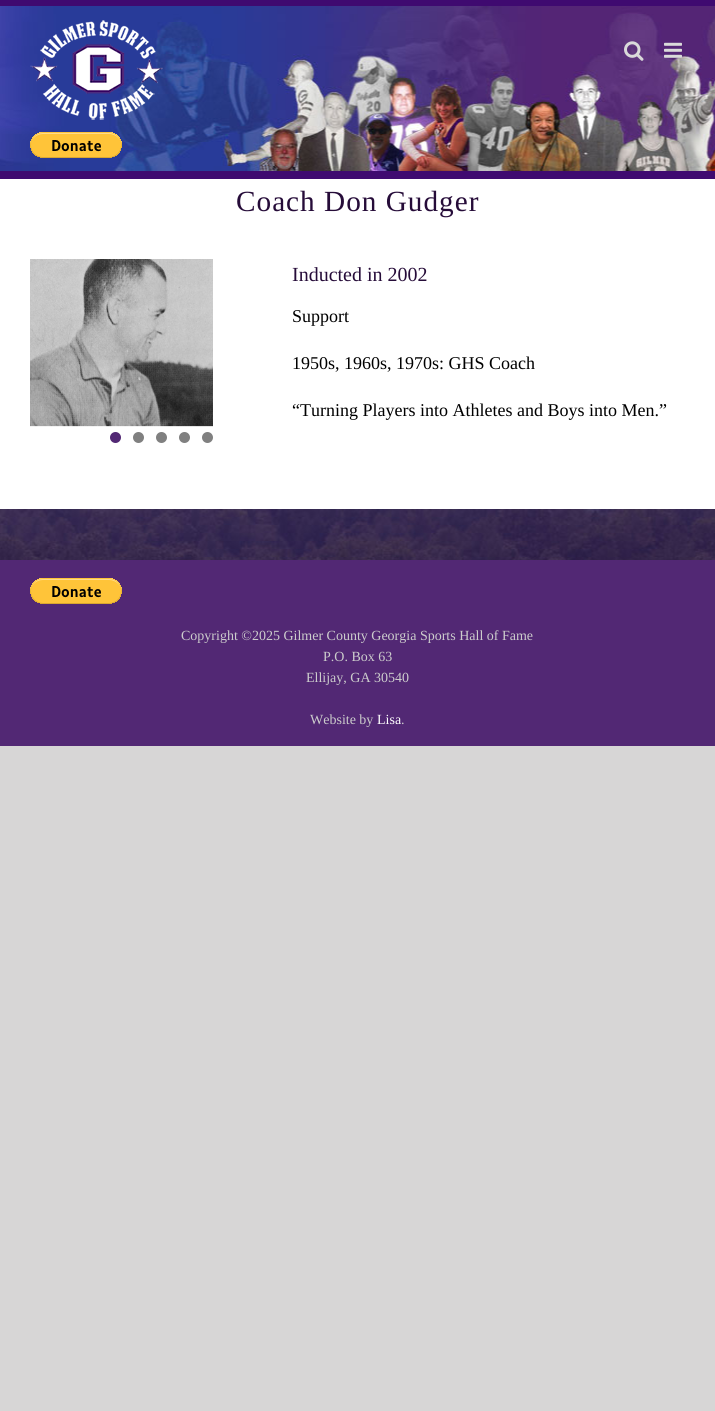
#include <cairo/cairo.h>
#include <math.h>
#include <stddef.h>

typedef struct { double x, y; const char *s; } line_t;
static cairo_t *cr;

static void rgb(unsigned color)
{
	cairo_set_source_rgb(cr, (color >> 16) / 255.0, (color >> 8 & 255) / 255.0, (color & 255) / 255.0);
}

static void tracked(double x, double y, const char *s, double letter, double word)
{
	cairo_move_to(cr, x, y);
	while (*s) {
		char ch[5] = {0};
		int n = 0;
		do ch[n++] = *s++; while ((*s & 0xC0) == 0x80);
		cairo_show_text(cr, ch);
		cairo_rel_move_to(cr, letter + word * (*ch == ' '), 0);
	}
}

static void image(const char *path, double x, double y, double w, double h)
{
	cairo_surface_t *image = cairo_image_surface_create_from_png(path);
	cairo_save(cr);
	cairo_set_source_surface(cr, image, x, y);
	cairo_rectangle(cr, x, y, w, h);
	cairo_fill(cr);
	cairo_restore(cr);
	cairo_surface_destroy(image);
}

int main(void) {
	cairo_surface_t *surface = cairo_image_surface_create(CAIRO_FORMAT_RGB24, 715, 1411);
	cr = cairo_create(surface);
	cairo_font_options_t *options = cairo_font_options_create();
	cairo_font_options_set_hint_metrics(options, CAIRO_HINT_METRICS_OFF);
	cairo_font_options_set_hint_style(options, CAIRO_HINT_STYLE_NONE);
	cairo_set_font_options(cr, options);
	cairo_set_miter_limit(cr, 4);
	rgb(0xd7d6d6);
	cairo_paint(cr);
	rgb(0xffffff);
	cairo_rectangle(cr, 0, 179, 715, 330);
	cairo_fill(cr);
	rgb(0x3f0a70);
	cairo_rectangle(cr, 0, 0, 715, 179);
	cairo_fill(cr);
	image("img/1.png", 0, 6, 715, 165);
	image("img/2.png", 30, 20, 133, 100);
	image("img/3.png", 30, 132, 92, 26);
	image("img/4.png", 624, 41, 20, 20);
	image("img/5.png", 664, 42, 18, 16);
	image("img/6.png", 30, 259, 183, 168);
	rgb(0x522874);
	cairo_arc(cr, 115.5, 437.5, 5.5, 0, 2 * M_PI);
	cairo_fill(cr);
	rgb(0x808080);
	cairo_arc(cr, 138.5, 437.5, 5.5, 0, 2 * M_PI);
	cairo_fill(cr);
	cairo_arc(cr, 161.5, 437.5, 5.5, 0, 2 * M_PI);
	cairo_fill(cr);
	cairo_arc(cr, 184.5, 437.5, 5.5, 0, 2 * M_PI);
	cairo_fill(cr);
	cairo_arc(cr, 207.5, 437.5, 5.5, 0, 2 * M_PI);
	cairo_fill(cr);
	image("img/7.png", 0, 509, 715, 51);
	rgb(0x522874);
	cairo_rectangle(cr, 0, 560, 715, 186);
	cairo_fill(cr);
	image("img/8.png", 30, 578, 92, 26);
	cairo_select_font_face(cr, "Liberation Serif", CAIRO_FONT_SLANT_NORMAL, CAIRO_FONT_WEIGHT_NORMAL);
	cairo_set_font_size(cr, 29.25);
	rgb(0x260c39);
	tracked(236, 211, "Coach Don Gudger", 1, 0);
	cairo_set_font_size(cr, 20);
	cairo_move_to(cr, 292, 281);
	cairo_show_text(cr, "Inducted in 2002");
	cairo_set_font_size(cr, 18);
	rgb(0x000000);
	{
		static const line_t items[] = {
			{292, 322, "Support"},
			{292, 369, "1950s, 1960s, 1970s: GHS Coach"},
			{292, 416, "“Turning Players into Athletes and Boys into Men.”"},
		};
		for (size_t i = 0; i < sizeof items / sizeof *items; i++) {
			cairo_move_to(cr, items[i].x, items[i].y);
			cairo_show_text(cr, items[i].s);
		}
	}
	cairo_set_font_size(cr, 14);
	rgb(0xcccccc);
	{
		static const line_t items[] = {
			{181, 640, "Copyright ©2025 Gilmer County Georgia Sports Hall of Fame"},
			{323, 661, "P.O. Box 63"},
			{306, 682, "Ellijay, GA 30540"},
			{310, 724, "Website by"},
		};
		for (size_t i = 0; i < sizeof items / sizeof *items; i++) {
			cairo_move_to(cr, items[i].x, items[i].y);
			cairo_show_text(cr, items[i].s);
		}
	}
	rgb(0xffffff);
	cairo_move_to(cr, 377, 724);
	cairo_show_text(cr, "Lisa");
	rgb(0xcccccc);
	cairo_move_to(cr, 401, 724);
	cairo_show_text(cr, ".");
	cairo_surface_write_to_png(surface, "page.png");
	cairo_font_options_destroy(options);
	cairo_destroy(cr);
	cairo_surface_destroy(surface);
	return 0;
}
